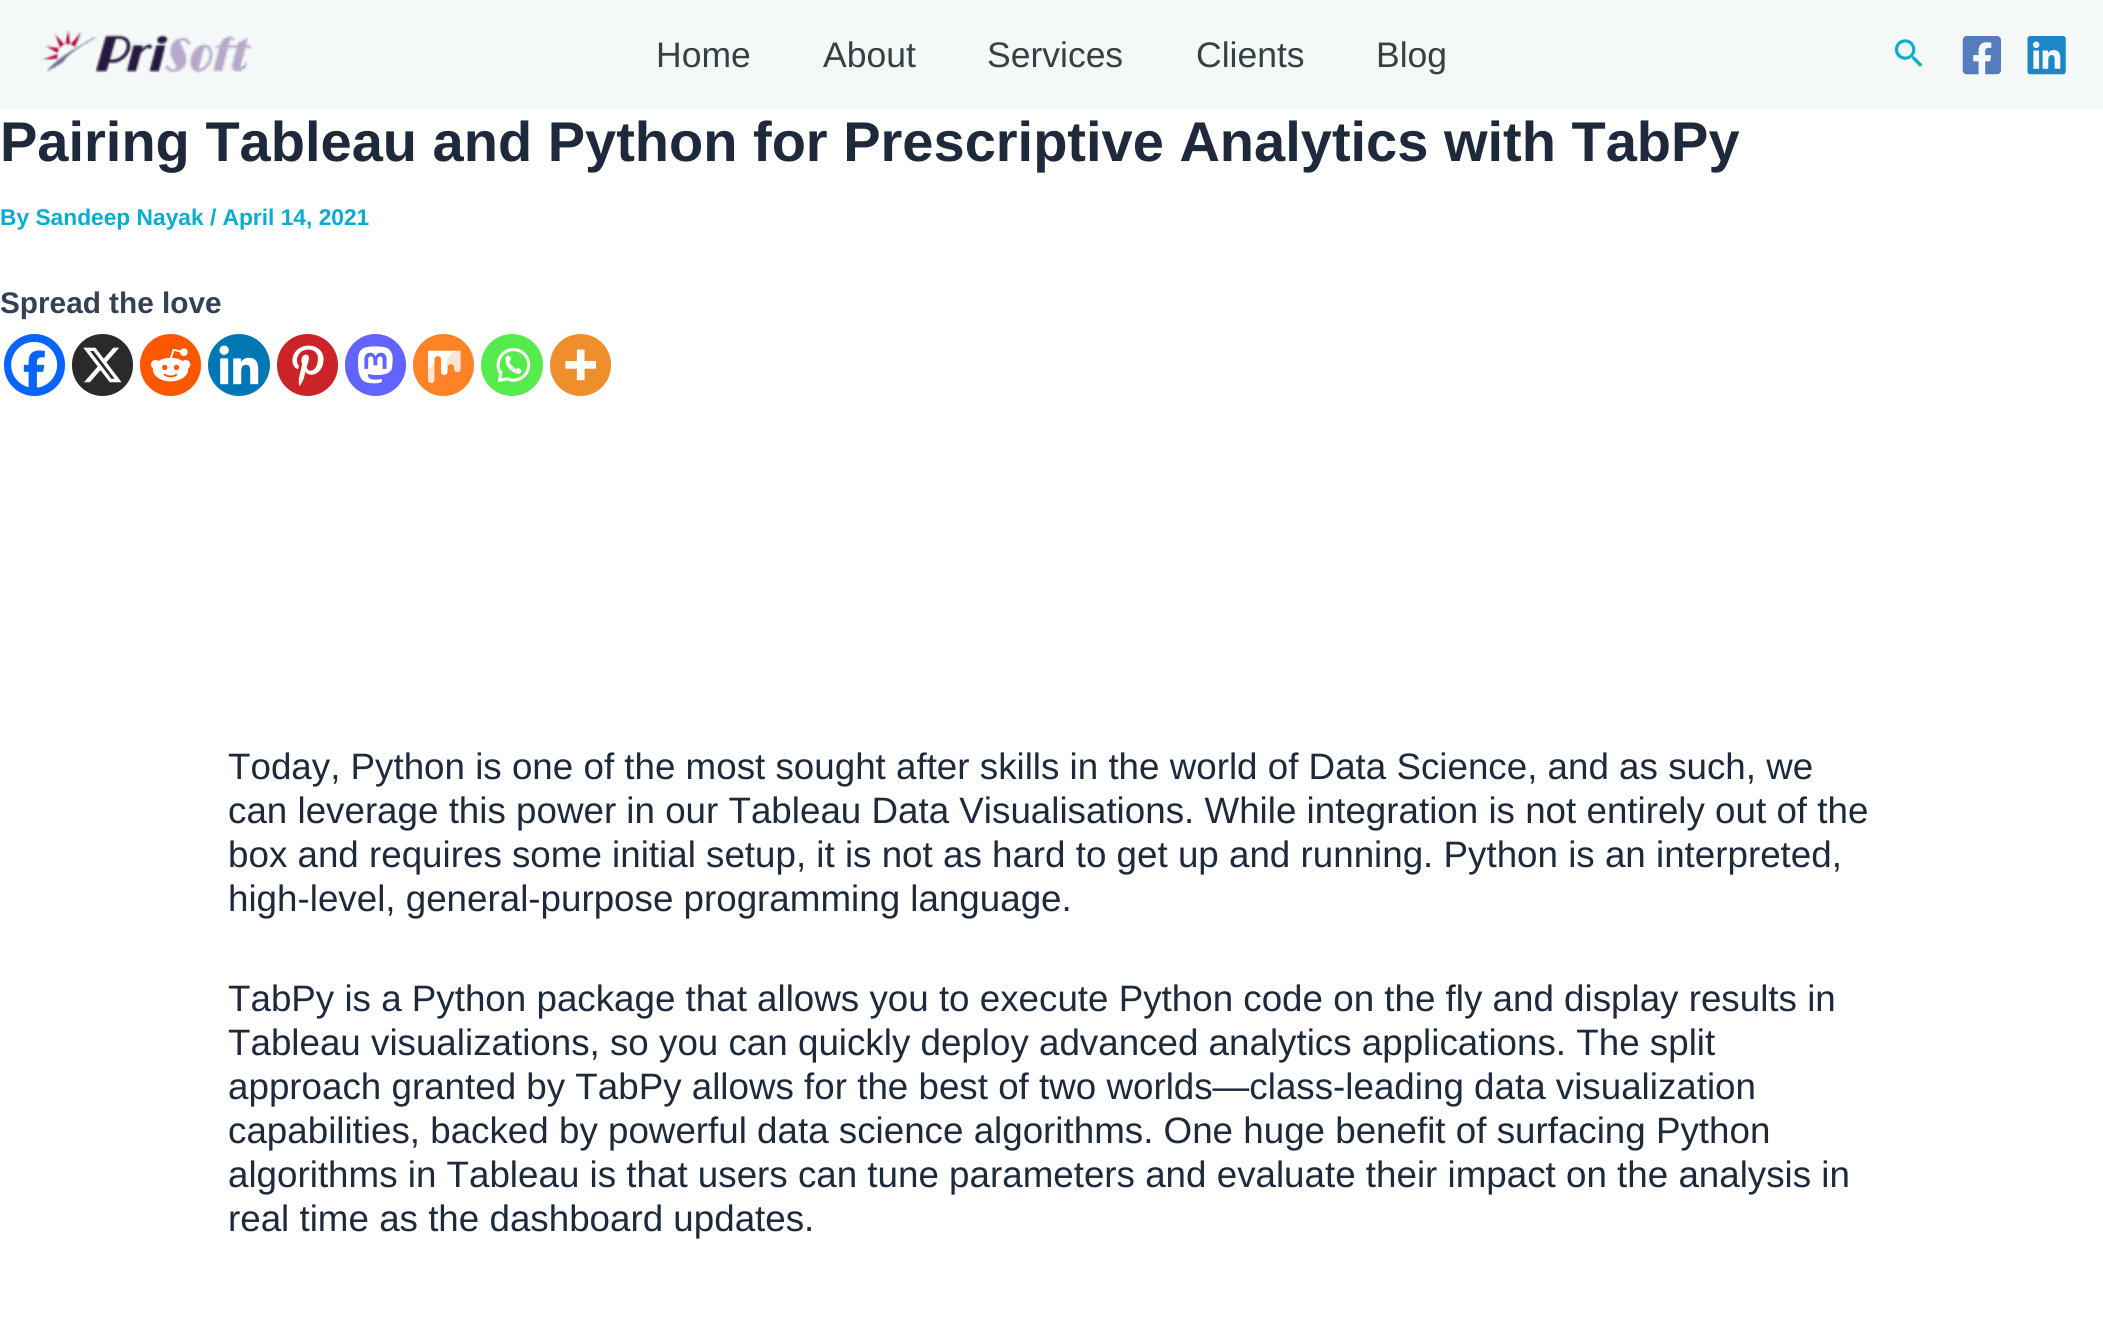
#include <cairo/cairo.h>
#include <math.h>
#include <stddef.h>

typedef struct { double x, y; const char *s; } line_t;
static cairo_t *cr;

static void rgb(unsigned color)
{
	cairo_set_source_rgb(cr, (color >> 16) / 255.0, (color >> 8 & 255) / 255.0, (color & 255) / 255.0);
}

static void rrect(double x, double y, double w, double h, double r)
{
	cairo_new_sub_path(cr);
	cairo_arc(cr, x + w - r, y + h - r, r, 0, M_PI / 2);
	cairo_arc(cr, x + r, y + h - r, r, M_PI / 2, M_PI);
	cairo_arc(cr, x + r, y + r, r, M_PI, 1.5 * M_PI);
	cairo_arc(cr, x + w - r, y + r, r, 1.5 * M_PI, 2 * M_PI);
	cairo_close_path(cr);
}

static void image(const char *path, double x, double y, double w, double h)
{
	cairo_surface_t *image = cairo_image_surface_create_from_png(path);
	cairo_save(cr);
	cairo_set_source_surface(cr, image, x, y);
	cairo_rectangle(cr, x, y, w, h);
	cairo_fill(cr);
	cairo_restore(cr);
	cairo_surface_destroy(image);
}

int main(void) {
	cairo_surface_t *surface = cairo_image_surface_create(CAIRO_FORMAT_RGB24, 2103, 1318);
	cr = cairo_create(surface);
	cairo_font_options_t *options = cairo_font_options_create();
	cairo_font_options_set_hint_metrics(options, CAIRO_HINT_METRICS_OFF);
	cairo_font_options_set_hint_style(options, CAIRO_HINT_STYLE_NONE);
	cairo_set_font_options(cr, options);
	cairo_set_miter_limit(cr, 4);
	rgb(0xffffff);
	cairo_paint(cr);
	rgb(0xf4f9f8);
	cairo_rectangle(cr, 0, 0, 2103, 109);
	cairo_fill(cr);
	image("img/1.png", 42, 30, 211, 44);
	image("img/2.png", 1894, 39, 28, 28);
	image("img/3.png", 1962, 36, 39, 39);
	image("img/4.png", 2027, 36, 39, 39);
	rgb(0x0765fe);
	rrect(4, 334, 61, 62, 30.5);
	cairo_fill(cr);
	image("img/5.png", 11, 341, 47, 47);
	rgb(0x2a2a2a);
	rrect(72, 334, 61, 62, 30.5);
	cairo_fill(cr);
	image("img/6.png", 83, 347, 39, 36);
	rgb(0xff5700);
	rrect(140, 334, 61, 62, 30.5);
	cairo_fill(cr);
	image("img/7.png", 150, 348, 41, 34);
	rgb(0x0077b5);
	cairo_arc(cr, 239, 365, 31, 0, 2 * M_PI);
	cairo_fill(cr);
	image("img/8.png", 219, 345, 40, 40);
	rgb(0xcc2329);
	rrect(277, 334, 61, 62, 30.5);
	cairo_fill(cr);
	image("img/9.png", 292, 345, 32, 41);
	rgb(0x6364ff);
	rrect(345, 334, 61, 62, 30.5);
	cairo_fill(cr);
	image("img/10.png", 358, 346, 35, 38);
	rgb(0xff8226);
	rrect(413, 334, 61, 62, 30.5);
	cairo_fill(cr);
	image("img/11.png", 427, 350, 34, 34);
	rgb(0x55eb4c);
	cairo_arc(cr, 512, 365, 31, 0, 2 * M_PI);
	cairo_fill(cr);
	image("img/12.png", 496, 348, 35, 34);
	rgb(0xee8e2d);
	rrect(550, 334, 61, 62, 30.5);
	cairo_fill(cr);
	image("img/13.png", 565, 349, 31, 32);
	cairo_select_font_face(cr, "Liberation Sans", CAIRO_FONT_SLANT_NORMAL, CAIRO_FONT_WEIGHT_NORMAL);
	cairo_set_font_size(cr, 35.5);
	rgb(0x354042);
	{
		static const line_t items[] = {
			{656, 67, "Home"},
			{823, 67, "About"},
			{987, 67, "Services"},
			{1196, 67, "Clients"},
			{1376, 67, "Blog"},
		};
		for (size_t i = 0; i < sizeof items / sizeof *items; i++) {
			cairo_move_to(cr, items[i].x, items[i].y);
			cairo_show_text(cr, items[i].s);
		}
	}
	cairo_select_font_face(cr, "Liberation Sans", CAIRO_FONT_SLANT_NORMAL, CAIRO_FONT_WEIGHT_BOLD);
	cairo_set_font_size(cr, 56);
	rgb(0x1e293b);
	cairo_move_to(cr, 0, 161);
	cairo_show_text(cr, "Pairing Tableau and Python for Prescriptive Analytics with TabPy");
	cairo_set_font_size(cr, 22.75);
	rgb(0x07adcf);
	cairo_move_to(cr, 0, 225);
	cairo_show_text(cr, "By Sandeep Nayak / April 14, 2021");
	cairo_set_font_size(cr, 29.75);
	rgb(0x334155);
	cairo_move_to(cr, 0, 313);
	cairo_show_text(cr, "Spread the love");
	cairo_select_font_face(cr, "Liberation Sans", CAIRO_FONT_SLANT_NORMAL, CAIRO_FONT_WEIGHT_NORMAL);
	cairo_set_font_size(cr, 36.75);
	rgb(0x1e293b);
	{
		static const line_t items[] = {
			{228, 779, "Today, Python is one of the most sought after skills in the world of Data Science, and as such, we"},
			{228, 823, "can leverage this power in our Tableau Data Visualisations. While integration is not entirely out of the"},
			{228, 867, "box and requires some initial setup, it is not as hard to get up and running. Python is an interpreted,"},
			{228, 911, "high-level, general-purpose programming language."},
			{228, 1011, "TabPy is a Python package that allows you to execute Python code on the fly and display results in"},
			{228, 1055, "Tableau visualizations, so you can quickly deploy advanced analytics applications. The split"},
			{228, 1099, "approach granted by TabPy allows for the best of two worlds—class-leading data visualization"},
			{228, 1143, "capabilities, backed by powerful data science algorithms. One huge benefit of surfacing Python"},
			{228, 1187, "algorithms in Tableau is that users can tune parameters and evaluate their impact on the analysis in"},
			{228, 1231, "real time as the dashboard updates."},
		};
		for (size_t i = 0; i < sizeof items / sizeof *items; i++) {
			cairo_move_to(cr, items[i].x, items[i].y);
			cairo_show_text(cr, items[i].s);
		}
	}
	cairo_surface_write_to_png(surface, "page.png");
	cairo_font_options_destroy(options);
	cairo_destroy(cr);
	cairo_surface_destroy(surface);
	return 0;
}
